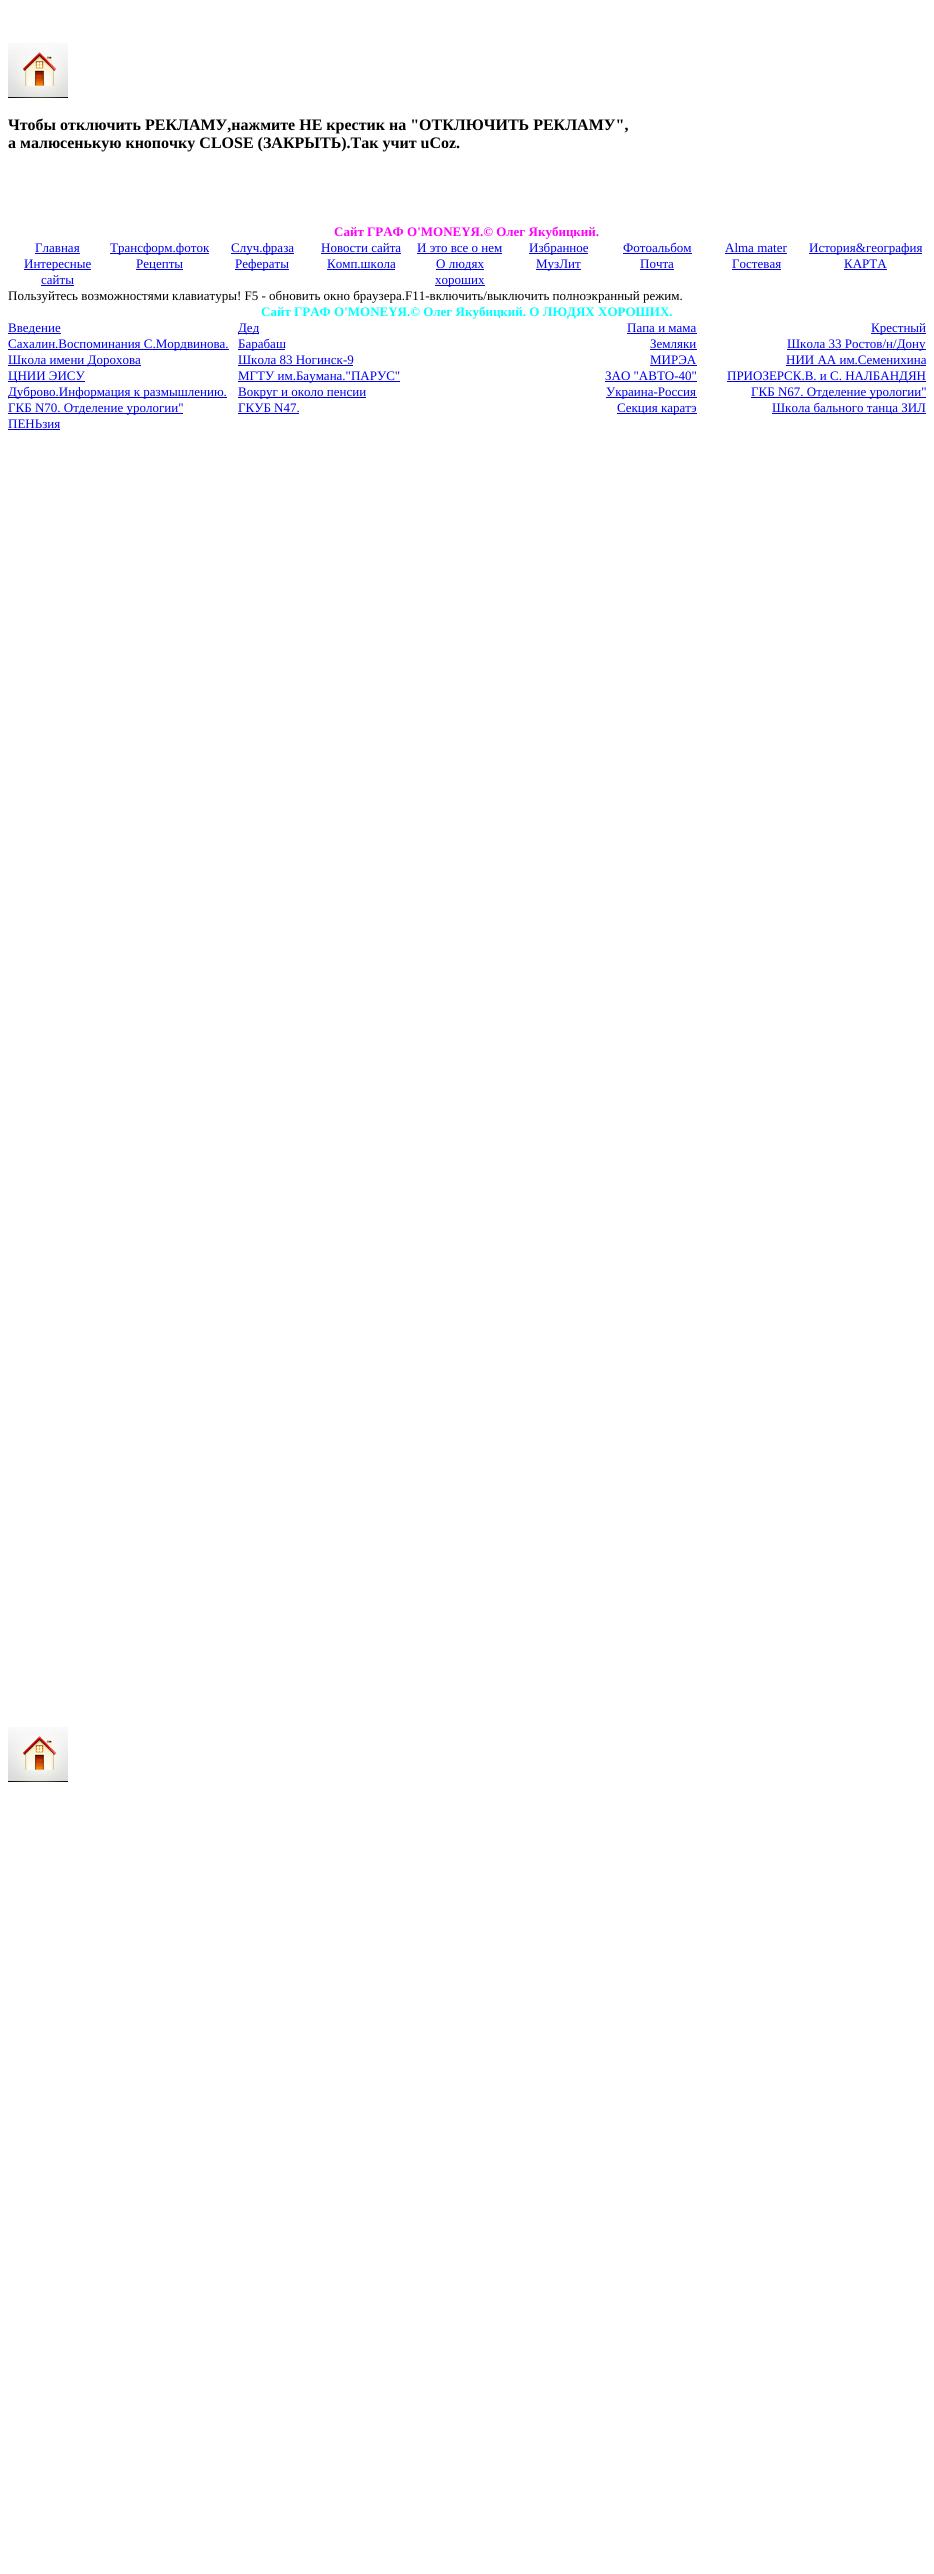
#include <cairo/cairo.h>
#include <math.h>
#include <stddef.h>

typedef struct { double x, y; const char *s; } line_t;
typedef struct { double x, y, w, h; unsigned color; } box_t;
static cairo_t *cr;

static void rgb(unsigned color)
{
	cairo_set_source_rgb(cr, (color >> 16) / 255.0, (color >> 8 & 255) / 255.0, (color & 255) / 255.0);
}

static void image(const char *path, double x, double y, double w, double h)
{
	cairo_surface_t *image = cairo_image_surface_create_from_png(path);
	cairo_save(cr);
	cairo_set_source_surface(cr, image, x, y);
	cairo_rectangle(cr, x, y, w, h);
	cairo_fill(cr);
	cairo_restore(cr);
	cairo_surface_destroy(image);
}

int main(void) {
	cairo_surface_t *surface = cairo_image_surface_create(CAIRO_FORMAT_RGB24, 934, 2574);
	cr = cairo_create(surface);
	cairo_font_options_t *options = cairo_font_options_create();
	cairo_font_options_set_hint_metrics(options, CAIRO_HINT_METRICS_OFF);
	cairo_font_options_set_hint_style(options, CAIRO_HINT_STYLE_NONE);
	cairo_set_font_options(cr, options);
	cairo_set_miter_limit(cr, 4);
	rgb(0xffffff);
	cairo_paint(cr);
	image("img/1.png", 8, 43, 60, 55);
	{
		static const box_t items[] = {
			{35, 253, 45, 1, 0x0000ee},
			{110, 253, 99, 1, 0x0000ee},
			{231, 253, 63, 1, 0x0000ee},
			{321, 253, 80, 1, 0x0000ee},
			{417, 253, 85, 1, 0x0000ee},
			{529, 253, 59, 1, 0x0000ee},
			{623, 253, 69, 1, 0x0000ee},
			{725, 253, 62, 1, 0x0000ee},
			{809, 253, 113, 1, 0x0000ee},
			{24, 269, 67, 1, 0x0000ee},
			{41, 285, 33, 1, 0x0000ee},
			{136, 269, 47, 1, 0x0000ee},
			{235, 269, 54, 1, 0x0000ee},
			{327, 269, 68, 1, 0x0000ee},
			{436, 269, 48, 1, 0x0000ee},
			{435, 285, 50, 1, 0x0000ee},
			{536, 269, 45, 1, 0x0000ee},
			{640, 269, 34, 1, 0x0000ee},
			{732, 269, 49, 1, 0x0000ee},
			{844, 269, 43, 1, 0x0000ee},
			{8, 333, 53, 1, 0x0000ee},
			{238, 333, 21, 1, 0x0000ee},
			{627, 333, 70, 1, 0x0000ee},
			{871, 333, 55, 1, 0x0000ee},
			{8, 349, 221, 1, 0x0000ee},
			{238, 349, 47, 1, 0x0000ee},
			{650, 349, 47, 1, 0x0000ee},
			{787, 349, 139, 1, 0x0000ee},
			{8, 365, 133, 1, 0x0000ee},
			{238, 365, 115, 1, 0x0000ee},
			{650, 365, 47, 1, 0x0000ee},
			{786, 365, 140, 1, 0x0000ee},
			{8, 381, 77, 1, 0x0000ee},
			{238, 381, 162, 1, 0x0000ee},
			{605, 381, 92, 1, 0x0000ee},
			{727, 381, 199, 1, 0x0000ee},
			{8, 397, 219, 1, 0x0000ee},
			{238, 397, 128, 1, 0x0000ee},
			{606, 397, 91, 1, 0x0000ee},
			{751, 397, 175, 1, 0x0000ee},
			{8, 413, 175, 1, 0x0000ee},
			{238, 413, 61, 1, 0x0000ee},
			{617, 413, 80, 1, 0x0000ee},
			{772, 413, 154, 1, 0x0000ee},
			{8, 429, 52, 1, 0x0000ee},
		};
		for (size_t i = 0; i < sizeof items / sizeof *items; i++) {
			rgb(items[i].color);
			cairo_rectangle(cr, items[i].x, items[i].y, items[i].w, items[i].h);
			cairo_fill(cr);
		}
	}
	image("img/1.png", 8, 1727, 60, 55);
	cairo_select_font_face(cr, "Liberation Serif", CAIRO_FONT_SLANT_NORMAL, CAIRO_FONT_WEIGHT_BOLD);
	cairo_set_font_size(cr, 16);
	rgb(0x000000);
	cairo_move_to(cr, 8, 130);
	cairo_show_text(cr, "Чтобы отключить РЕКЛАМУ,нажмите НЕ крестик на \"ОТКЛЮЧИТЬ РЕКЛАМУ\",");
	cairo_move_to(cr, 8, 148);
	cairo_show_text(cr, "а малюсенькую кнопочку CLOSE (ЗАКРЫТЬ).Так учит uCoz.");
	cairo_set_font_size(cr, 13);
	rgb(0xff00ff);
	cairo_move_to(cr, 334, 236);
	cairo_show_text(cr, "Сайт ГРАФ O'MONEYЯ.© Олег Якубицкий.");
	cairo_select_font_face(cr, "Liberation Serif", CAIRO_FONT_SLANT_NORMAL, CAIRO_FONT_WEIGHT_NORMAL);
	rgb(0x0000ee);
	{
		static const line_t items[] = {
			{35, 252, "Главная"},
			{110, 252, "Трансформ.фоток"},
			{231, 252, "Случ.фраза"},
			{321, 252, "Новости сайта"},
			{417, 252, "И это все о нем"},
			{529, 252, "Избранное"},
			{623, 252, "Фотоальбом"},
			{725, 252, "Alma mater"},
			{809, 252, "История&география"},
			{24, 268, "Интересные"},
			{41, 284, "сайты"},
			{136, 268, "Рецепты"},
			{235, 268, "Рефераты"},
			{327, 268, "Комп.школа"},
			{436, 268, "О людях"},
			{435, 284, "хороших"},
			{536, 268, "МузЛит"},
			{640, 268, "Почта"},
			{732, 268, "Гостевая"},
			{844, 268, "КАРТА"},
		};
		for (size_t i = 0; i < sizeof items / sizeof *items; i++) {
			cairo_move_to(cr, items[i].x, items[i].y);
			cairo_show_text(cr, items[i].s);
		}
	}
	rgb(0x000000);
	cairo_move_to(cr, 8, 300);
	cairo_show_text(cr, "Пользуйтесь возможностями клавиатуры! F5 - обновить окно браузера.F11-включить/выключить полноэкранный режим.");
	cairo_select_font_face(cr, "Liberation Serif", CAIRO_FONT_SLANT_NORMAL, CAIRO_FONT_WEIGHT_BOLD);
	rgb(0x00ffff);
	cairo_move_to(cr, 261, 316);
	cairo_show_text(cr, "Сайт ГРАФ O'MONEYЯ.© Олег Якубицкий. О ЛЮДЯХ ХОРОШИХ.");
	cairo_select_font_face(cr, "Liberation Serif", CAIRO_FONT_SLANT_NORMAL, CAIRO_FONT_WEIGHT_NORMAL);
	rgb(0x0000ee);
	{
		static const line_t items[] = {
			{8, 332, "Введение"},
			{238, 332, "Дед"},
			{627, 332, "Папа и мама"},
			{871, 332, "Крестный"},
			{8, 348, "Сахалин.Воспоминания С.Мордвинова."},
			{238, 348, "Барабаш"},
			{650, 348, "Земляки"},
			{787, 348, "Школа 33 Ростов/н/Дону"},
			{8, 364, "Школа имени Дорохова"},
			{238, 364, "Школа 83 Ногинск-9"},
			{650, 364, "МИРЭА"},
			{786, 364, "НИИ АА им.Семенихина"},
			{8, 380, "ЦНИИ ЭИСУ"},
			{238, 380, "МГТУ им.Баумана.\"ПАРУС\""},
			{605, 380, "ЗАО \"АВТО-40\""},
			{727, 380, "ПРИОЗЕРСК.В. и С. НАЛБАНДЯН"},
			{8, 396, "Дуброво.Информация к размышлению."},
			{238, 396, "Вокруг и около пенсии"},
			{606, 396, "Украина-Россия"},
			{751, 396, "ГКБ N67. Отделение урологии\""},
			{8, 412, "ГКБ N70. Отделение урологии\""},
			{238, 412, "ГКУБ N47."},
			{617, 412, "Секция каратэ"},
			{772, 412, "Школа бального танца ЗИЛ"},
			{8, 428, "ПЕНЬзия"},
		};
		for (size_t i = 0; i < sizeof items / sizeof *items; i++) {
			cairo_move_to(cr, items[i].x, items[i].y);
			cairo_show_text(cr, items[i].s);
		}
	}
	cairo_surface_write_to_png(surface, "page.png");
	cairo_font_options_destroy(options);
	cairo_destroy(cr);
	cairo_surface_destroy(surface);
	return 0;
}
